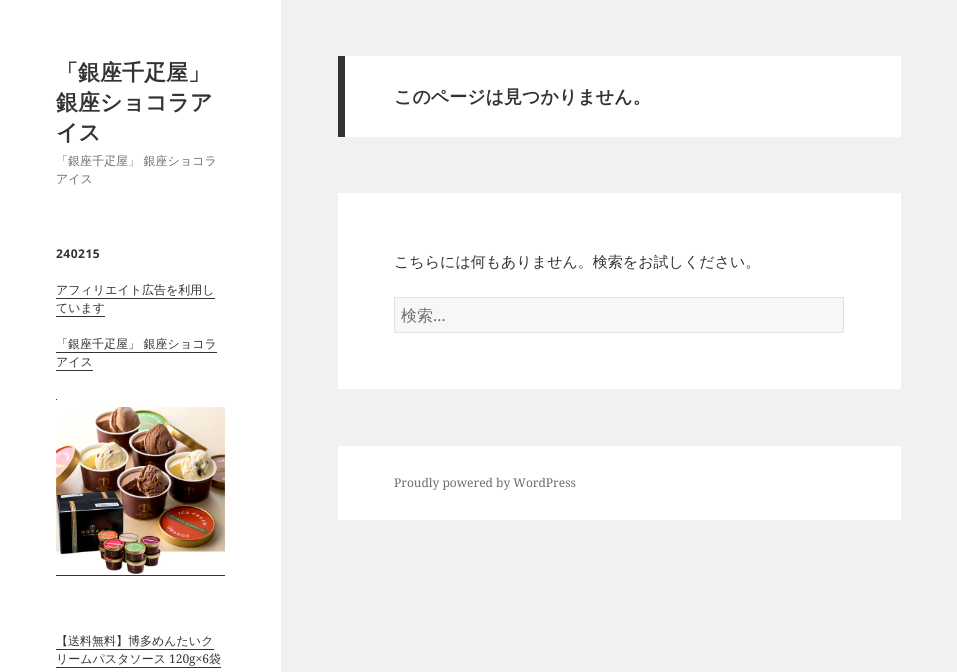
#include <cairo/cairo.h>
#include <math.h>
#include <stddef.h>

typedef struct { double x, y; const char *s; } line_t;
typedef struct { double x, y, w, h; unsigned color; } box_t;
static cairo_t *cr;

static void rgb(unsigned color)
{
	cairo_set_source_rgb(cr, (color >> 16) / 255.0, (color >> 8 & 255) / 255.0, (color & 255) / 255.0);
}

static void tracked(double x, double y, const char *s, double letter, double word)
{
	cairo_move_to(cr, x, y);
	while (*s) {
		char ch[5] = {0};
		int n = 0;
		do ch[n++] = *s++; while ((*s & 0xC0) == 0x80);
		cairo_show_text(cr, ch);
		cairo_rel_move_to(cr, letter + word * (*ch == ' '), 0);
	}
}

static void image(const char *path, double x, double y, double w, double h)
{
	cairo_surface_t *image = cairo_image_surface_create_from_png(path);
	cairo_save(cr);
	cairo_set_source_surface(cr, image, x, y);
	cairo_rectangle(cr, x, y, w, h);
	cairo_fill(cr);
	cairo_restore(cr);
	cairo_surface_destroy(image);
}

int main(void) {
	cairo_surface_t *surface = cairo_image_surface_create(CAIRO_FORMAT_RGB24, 957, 672);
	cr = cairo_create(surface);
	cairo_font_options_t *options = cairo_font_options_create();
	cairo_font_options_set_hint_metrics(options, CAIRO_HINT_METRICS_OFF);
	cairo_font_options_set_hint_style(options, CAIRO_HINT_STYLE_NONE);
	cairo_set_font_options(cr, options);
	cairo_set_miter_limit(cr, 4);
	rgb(0xf1f1f1);
	cairo_paint(cr);
	{
		static const box_t items[] = {
			{0, 0, 281, 672, 0xffffff},
			{56, 298, 159, 1, 0x333333},
			{56, 316, 49, 1, 0x333333},
			{56, 352, 161, 1, 0x333333},
			{56, 370, 37, 1, 0x333333},
			{56, 399, 1, 1, 0x333333},
		};
		for (size_t i = 0; i < sizeof items / sizeof *items; i++) {
			rgb(items[i].color);
			cairo_rectangle(cr, items[i].x, items[i].y, items[i].w, items[i].h);
			cairo_fill(cr);
		}
	}
	image("img/1.png", 56, 407, 169, 168);
	{
		static const box_t items[] = {
			{56, 575, 169, 1, 0x333333},
			{56, 649, 158, 1, 0x333333},
			{56, 667, 165, 1, 0x333333},
			{345, 56, 556, 81, 0xffffff},
			{338, 56, 7, 81, 0x333333},
			{338, 193, 563, 196, 0xffffff},
		};
		for (size_t i = 0; i < sizeof items / sizeof *items; i++) {
			rgb(items[i].color);
			cairo_rectangle(cr, items[i].x, items[i].y, items[i].w, items[i].h);
			cairo_fill(cr);
		}
	}
	rgb(0xf7f7f7);
	cairo_rectangle(cr, 394.5, 297.5, 449, 35);
	cairo_fill_preserve(cr);
	rgb(0xe3e3e3);
	cairo_set_line_width(cr, 1);
	cairo_stroke(cr);
	rgb(0xffffff);
	cairo_rectangle(cr, 338, 446, 563, 74);
	cairo_fill(cr);
	cairo_select_font_face(cr, "WenQuanYi Zen Hei", CAIRO_FONT_SLANT_NORMAL, CAIRO_FONT_WEIGHT_BOLD);
	cairo_set_font_size(cr, 22);
	rgb(0x333333);
	{
		static const line_t items[] = {
			{56, 80, "「銀座千疋屋」"},
			{56, 110, "銀座ショコラア"},
			{56, 140, "イス"},
		};
		for (size_t i = 0; i < sizeof items / sizeof *items; i++) {
			cairo_move_to(cr, items[i].x, items[i].y);
			cairo_show_text(cr, items[i].s);
		}
	}
	cairo_select_font_face(cr, "WenQuanYi Zen Hei Medium", CAIRO_FONT_SLANT_NORMAL, CAIRO_FONT_WEIGHT_NORMAL);
	cairo_set_font_size(cr, 12);
	rgb(0x6e6e6e);
	cairo_move_to(cr, 56, 165);
	cairo_show_text(cr, "「銀座千疋屋」 銀座ショコラ");
	cairo_move_to(cr, 56, 183);
	cairo_show_text(cr, "アイス");
	cairo_select_font_face(cr, "Noto Sans", CAIRO_FONT_SLANT_NORMAL, CAIRO_FONT_WEIGHT_BOLD);
	rgb(0x333333);
	tracked(56, 258, "240215", 0.5, 0);
	cairo_select_font_face(cr, "WenQuanYi Zen Hei Medium", CAIRO_FONT_SLANT_NORMAL, CAIRO_FONT_WEIGHT_NORMAL);
	{
		static const line_t items[] = {
			{56, 294, "アフィリエイト広告を利用し"},
			{56, 312, "ています"},
			{56, 348, "「銀座千疋屋」 銀座ショコラ"},
			{56, 366, "アイス"},
			{56, 645, "【送料無料】博多めんたいク"},
			{56, 663, "リームパスタソース"},
		};
		for (size_t i = 0; i < sizeof items / sizeof *items; i++) {
			cairo_move_to(cr, items[i].x, items[i].y);
			cairo_show_text(cr, items[i].s);
		}
	}
	cairo_select_font_face(cr, "Noto Serif", CAIRO_FONT_SLANT_NORMAL, CAIRO_FONT_WEIGHT_NORMAL);
	cairo_move_to(cr, 169, 663);
	cairo_show_text(cr, "120g×6");
	cairo_select_font_face(cr, "WenQuanYi Zen Hei Medium", CAIRO_FONT_SLANT_NORMAL, CAIRO_FONT_WEIGHT_NORMAL);
	cairo_move_to(cr, 209, 663);
	cairo_show_text(cr, "袋");
	cairo_select_font_face(cr, "WenQuanYi Zen Hei", CAIRO_FONT_SLANT_NORMAL, CAIRO_FONT_WEIGHT_BOLD);
	cairo_set_font_size(cr, 18);
	cairo_move_to(cr, 394, 103);
	cairo_show_text(cr, "このページは見つかりません。");
	cairo_select_font_face(cr, "WenQuanYi Zen Hei Medium", CAIRO_FONT_SLANT_NORMAL, CAIRO_FONT_WEIGHT_NORMAL);
	cairo_set_font_size(cr, 15);
	cairo_move_to(cr, 394, 267);
	cairo_show_text(cr, "こちらには何もありません。検索をお試しください。");
	cairo_set_font_size(cr, 16);
	rgb(0x6e6e6e);
	cairo_move_to(cr, 401, 321);
	cairo_show_text(cr, "検索");
	cairo_select_font_face(cr, "Noto Sans", CAIRO_FONT_SLANT_NORMAL, CAIRO_FONT_WEIGHT_NORMAL);
	cairo_move_to(cr, 433, 321);
	cairo_show_text(cr, "…");
	cairo_select_font_face(cr, "Noto Serif", CAIRO_FONT_SLANT_NORMAL, CAIRO_FONT_WEIGHT_NORMAL);
	cairo_set_font_size(cr, 12);
	cairo_move_to(cr, 394, 487);
	cairo_show_text(cr, "Proudly powered by WordPress");
	cairo_surface_write_to_png(surface, "page.png");
	cairo_font_options_destroy(options);
	cairo_destroy(cr);
	cairo_surface_destroy(surface);
	return 0;
}
